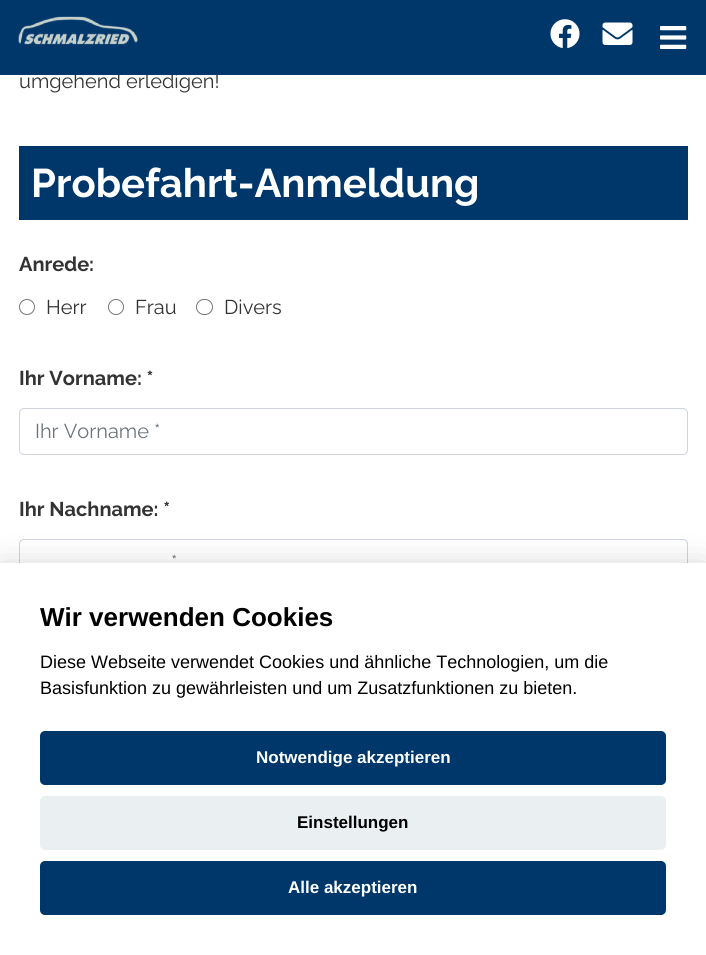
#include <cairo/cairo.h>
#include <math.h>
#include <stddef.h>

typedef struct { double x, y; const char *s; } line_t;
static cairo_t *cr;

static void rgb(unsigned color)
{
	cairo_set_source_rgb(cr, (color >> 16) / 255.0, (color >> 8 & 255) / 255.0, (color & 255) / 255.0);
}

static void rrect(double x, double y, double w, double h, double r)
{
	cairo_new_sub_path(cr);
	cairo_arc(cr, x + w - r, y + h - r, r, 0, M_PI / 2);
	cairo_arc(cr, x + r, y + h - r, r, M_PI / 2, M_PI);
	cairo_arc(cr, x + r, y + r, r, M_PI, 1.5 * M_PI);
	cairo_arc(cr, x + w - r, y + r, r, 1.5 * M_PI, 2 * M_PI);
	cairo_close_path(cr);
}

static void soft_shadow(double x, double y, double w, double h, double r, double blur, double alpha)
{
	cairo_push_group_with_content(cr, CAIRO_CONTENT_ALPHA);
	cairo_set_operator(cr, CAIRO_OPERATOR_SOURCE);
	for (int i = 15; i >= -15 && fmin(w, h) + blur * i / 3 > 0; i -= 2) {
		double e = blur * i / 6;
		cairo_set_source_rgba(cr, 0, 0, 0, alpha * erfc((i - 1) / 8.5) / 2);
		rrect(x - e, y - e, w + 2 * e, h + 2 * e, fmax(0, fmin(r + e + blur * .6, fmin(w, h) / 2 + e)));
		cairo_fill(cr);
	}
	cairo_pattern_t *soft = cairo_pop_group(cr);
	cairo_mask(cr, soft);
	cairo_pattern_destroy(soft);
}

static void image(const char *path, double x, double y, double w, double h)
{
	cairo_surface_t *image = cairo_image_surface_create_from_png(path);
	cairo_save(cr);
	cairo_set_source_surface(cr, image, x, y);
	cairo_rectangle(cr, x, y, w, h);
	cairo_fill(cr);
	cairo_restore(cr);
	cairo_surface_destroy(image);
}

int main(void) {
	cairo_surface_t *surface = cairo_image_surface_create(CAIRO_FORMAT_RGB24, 706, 955);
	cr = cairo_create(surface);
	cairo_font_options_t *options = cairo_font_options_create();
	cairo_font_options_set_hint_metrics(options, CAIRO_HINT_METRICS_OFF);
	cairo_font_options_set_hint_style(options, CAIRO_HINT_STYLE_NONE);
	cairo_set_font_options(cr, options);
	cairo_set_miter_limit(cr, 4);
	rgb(0xffffff);
	cairo_paint(cr);
	rgb(0x00376b);
	cairo_rectangle(cr, 19, 146, 669, 74);
	cairo_fill(cr);
	cairo_arc(cr, 27, 307, 7.5, 0, 2 * M_PI);
	rgb(0x767676);
	cairo_set_line_width(cr, 1);
	cairo_stroke(cr);
	cairo_arc(cr, 116, 307, 7.5, 0, 2 * M_PI);
	cairo_stroke(cr);
	rrect(196.5, 299.5, 16, 15, 7.5);
	cairo_stroke(cr);
	rrect(19.5, 408.5, 668, 46, 4.5);
	rgb(0xced4da);
	cairo_stroke(cr);
	rrect(19.5, 539.5, 668, 46, 4.5);
	cairo_stroke(cr);
	rgb(0x020203);
	soft_shadow(0, 575, 706, 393, 0, 19, 0.28);
	rgb(0xffffff);
	cairo_rectangle(cr, 0, 563, 706, 392);
	cairo_fill(cr);
	rgb(0x00376b);
	rrect(40, 731, 626, 54, 5);
	cairo_fill(cr);
	rgb(0xeaeff2);
	rrect(40, 796, 626, 54, 5);
	cairo_fill(cr);
	rgb(0x00376b);
	rrect(40, 861, 626, 54, 5);
	cairo_fill(cr);
	cairo_select_font_face(cr, "Raleway", CAIRO_FONT_SLANT_NORMAL, CAIRO_FONT_WEIGHT_NORMAL);
	cairo_set_font_size(cr, 20);
	rgb(0x333333);
	cairo_move_to(cr, 19, 88);
	cairo_show_text(cr, "umgehend erledigen!");
	rgb(0x00376b);
	cairo_rectangle(cr, 0, 0, 706, 75);
	cairo_fill(cr);
	image("img/4.png", 660, 26, 27, 23);
	image("img/3.png", 602, 22, 31, 23);
	image("img/2.png", 550, 19, 30, 29);
	image("img/1.png", 18, 16, 120, 29);
	cairo_select_font_face(cr, "Raleway", CAIRO_FONT_SLANT_NORMAL, CAIRO_FONT_WEIGHT_BOLD);
	cairo_set_font_size(cr, 40);
	rgb(0xffffff);
	cairo_move_to(cr, 31, 197);
	cairo_show_text(cr, "Probefahrt-Anmeldung");
	cairo_set_font_size(cr, 20);
	rgb(0x333333);
	cairo_move_to(cr, 19, 271);
	cairo_show_text(cr, "Anrede:");
	cairo_select_font_face(cr, "Raleway", CAIRO_FONT_SLANT_NORMAL, CAIRO_FONT_WEIGHT_NORMAL);
	{
		static const line_t items[] = {
			{46, 314, "Herr"},
			{135, 314, "Frau"},
			{224, 314, "Divers"},
		};
		for (size_t i = 0; i < sizeof items / sizeof *items; i++) {
			cairo_move_to(cr, items[i].x, items[i].y);
			cairo_show_text(cr, items[i].s);
		}
	}
	cairo_select_font_face(cr, "Raleway", CAIRO_FONT_SLANT_NORMAL, CAIRO_FONT_WEIGHT_BOLD);
	cairo_move_to(cr, 19, 385);
	cairo_show_text(cr, "Ihr Vorname: *");
	cairo_select_font_face(cr, "Raleway", CAIRO_FONT_SLANT_NORMAL, CAIRO_FONT_WEIGHT_NORMAL);
	rgb(0x6c757d);
	cairo_move_to(cr, 35, 438);
	cairo_show_text(cr, "Ihr Vorname *");
	cairo_select_font_face(cr, "Raleway", CAIRO_FONT_SLANT_NORMAL, CAIRO_FONT_WEIGHT_BOLD);
	rgb(0x333333);
	cairo_move_to(cr, 19, 516);
	cairo_show_text(cr, "Ihr Nachname: *");
	cairo_select_font_face(cr, "Raleway", CAIRO_FONT_SLANT_NORMAL, CAIRO_FONT_WEIGHT_NORMAL);
	rgb(0x6c757d);
	cairo_move_to(cr, 171, 569);
	cairo_show_text(cr, "*");
	cairo_select_font_face(cr, "Liberation Sans", CAIRO_FONT_SLANT_NORMAL, CAIRO_FONT_WEIGHT_BOLD);
	cairo_set_font_size(cr, 26);
	rgb(0x000000);
	cairo_move_to(cr, 40, 626);
	cairo_show_text(cr, "Wir verwenden Cookies");
	cairo_select_font_face(cr, "Liberation Sans", CAIRO_FONT_SLANT_NORMAL, CAIRO_FONT_WEIGHT_NORMAL);
	cairo_set_font_size(cr, 18);
	cairo_move_to(cr, 40, 668);
	cairo_show_text(cr, "Diese Webseite verwendet Cookies und ähnliche Technologien, um die");
	cairo_move_to(cr, 40, 694);
	cairo_show_text(cr, "Basisfunktion zu gewährleisten und um Zusatzfunktionen zu bieten.");
	cairo_select_font_face(cr, "Liberation Sans", CAIRO_FONT_SLANT_NORMAL, CAIRO_FONT_WEIGHT_BOLD);
	cairo_set_font_size(cr, 17);
	rgb(0xffffff);
	cairo_move_to(cr, 256, 763);
	cairo_show_text(cr, "Notwendige akzeptieren");
	rgb(0x000000);
	cairo_move_to(cr, 297, 828);
	cairo_show_text(cr, "Einstellungen");
	rgb(0xffffff);
	cairo_move_to(cr, 288, 893);
	cairo_show_text(cr, "Alle akzeptieren");
	cairo_surface_write_to_png(surface, "page.png");
	cairo_font_options_destroy(options);
	cairo_destroy(cr);
	cairo_surface_destroy(surface);
	return 0;
}
